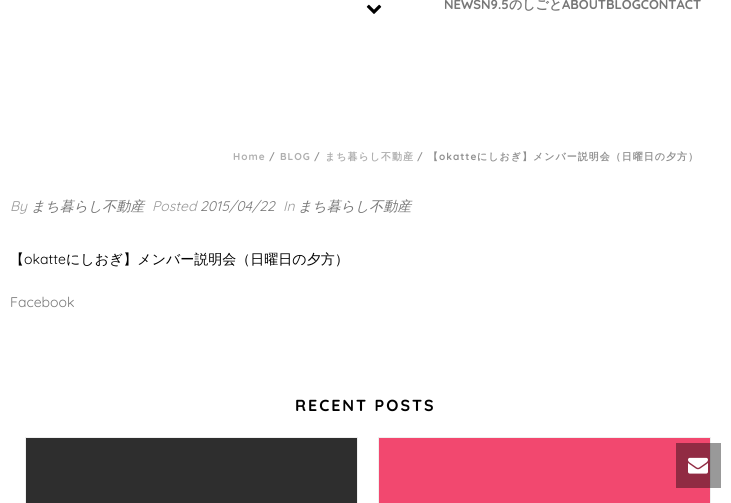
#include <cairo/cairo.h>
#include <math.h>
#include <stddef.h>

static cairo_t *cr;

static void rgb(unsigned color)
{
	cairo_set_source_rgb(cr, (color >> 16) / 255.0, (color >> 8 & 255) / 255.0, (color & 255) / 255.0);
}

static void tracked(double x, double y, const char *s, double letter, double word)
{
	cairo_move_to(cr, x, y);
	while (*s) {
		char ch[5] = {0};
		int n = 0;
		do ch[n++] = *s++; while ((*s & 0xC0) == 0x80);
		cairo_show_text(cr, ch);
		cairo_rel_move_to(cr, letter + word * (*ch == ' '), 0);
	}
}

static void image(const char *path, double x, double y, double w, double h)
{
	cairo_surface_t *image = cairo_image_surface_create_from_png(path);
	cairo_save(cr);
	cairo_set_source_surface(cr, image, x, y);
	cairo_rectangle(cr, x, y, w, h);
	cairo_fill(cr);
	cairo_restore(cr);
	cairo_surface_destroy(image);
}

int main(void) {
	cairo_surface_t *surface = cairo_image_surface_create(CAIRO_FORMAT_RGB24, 731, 503);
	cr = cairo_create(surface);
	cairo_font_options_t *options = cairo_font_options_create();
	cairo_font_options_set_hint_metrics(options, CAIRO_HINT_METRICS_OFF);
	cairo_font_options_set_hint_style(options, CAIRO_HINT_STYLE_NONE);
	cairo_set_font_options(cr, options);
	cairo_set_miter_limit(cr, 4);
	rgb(0xffffff);
	cairo_paint(cr);
	image("img/1.png", 366, 4, 16, 10);
	cairo_rectangle(cr, 25.5, 437.5, 332, 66);
	rgb(0xefefef);
	cairo_set_line_width(cr, 1);
	cairo_stroke(cr);
	rgb(0x2e2e2e);
	cairo_rectangle(cr, 26, 438, 331, 65);
	cairo_fill(cr);
	cairo_rectangle(cr, 378.5, 437.5, 332, 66);
	rgb(0xefefef);
	cairo_stroke(cr);
	rgb(0xf2486f);
	cairo_rectangle(cr, 379, 438, 331, 65);
	cairo_fill(cr);
	cairo_set_source_rgba(cr, 0, 0, 0, 0.4);
	cairo_rectangle(cr, 676, 443, 45, 45);
	cairo_fill(cr);
	image("img/2.png", 688, 457, 20, 17);
	cairo_select_font_face(cr, "Quicksand", CAIRO_FONT_SLANT_NORMAL, CAIRO_FONT_WEIGHT_BOLD);
	cairo_set_font_size(cr, 13);
	rgb(0x777777);
	cairo_move_to(cr, 444, 9);
	cairo_show_text(cr, "NEWSN9.5");
	cairo_select_font_face(cr, "WenQuanYi Zen Hei", CAIRO_FONT_SLANT_NORMAL, CAIRO_FONT_WEIGHT_BOLD);
	cairo_move_to(cr, 509, 9);
	cairo_show_text(cr, "のしごと");
	cairo_select_font_face(cr, "Quicksand", CAIRO_FONT_SLANT_NORMAL, CAIRO_FONT_WEIGHT_BOLD);
	cairo_move_to(cr, 562, 9);
	cairo_show_text(cr, "ABOUTBLOGCONTACT");
	cairo_set_font_size(cr, 10);
	rgb(0xafafaf);
	tracked(233, 160, "Home", 1, 0);
	rgb(0x919191);
	tracked(269, 160, "/", 1, 0);
	rgb(0xafafaf);
	tracked(280, 160, "BLOG", 1, 0);
	rgb(0x919191);
	tracked(314, 160, "/", 1, 0);
	cairo_select_font_face(cr, "WenQuanYi Zen Hei", CAIRO_FONT_SLANT_NORMAL, CAIRO_FONT_WEIGHT_BOLD);
	rgb(0xafafaf);
	tracked(325, 160, "まち暮らし不動産", 1, 0);
	cairo_select_font_face(cr, "Quicksand", CAIRO_FONT_SLANT_NORMAL, CAIRO_FONT_WEIGHT_BOLD);
	rgb(0x919191);
	tracked(417, 160, "/", 1, 0);
	cairo_select_font_face(cr, "WenQuanYi Zen Hei", CAIRO_FONT_SLANT_NORMAL, CAIRO_FONT_WEIGHT_BOLD);
	tracked(428, 160, "【", 1, 0);
	cairo_select_font_face(cr, "Quicksand", CAIRO_FONT_SLANT_NORMAL, CAIRO_FONT_WEIGHT_BOLD);
	tracked(439, 160, "okatte", 1, 0);
	cairo_select_font_face(cr, "WenQuanYi Zen Hei", CAIRO_FONT_SLANT_NORMAL, CAIRO_FONT_WEIGHT_BOLD);
	tracked(477, 160, "にしおぎ】メンバー説明会（日曜日の夕方）", 1, 0);
	cairo_select_font_face(cr, "Quicksand", CAIRO_FONT_SLANT_ITALIC, CAIRO_FONT_WEIGHT_NORMAL);
	cairo_set_font_size(cr, 14);
	rgb(0x999999);
	cairo_move_to(cr, 10, 211);
	cairo_show_text(cr, "By");
	cairo_select_font_face(cr, "WenQuanYi Zen Hei Medium", CAIRO_FONT_SLANT_ITALIC, CAIRO_FONT_WEIGHT_NORMAL);
	rgb(0x777777);
	cairo_move_to(cr, 31, 211);
	cairo_show_text(cr, "まち暮らし不動産");
	cairo_select_font_face(cr, "Quicksand", CAIRO_FONT_SLANT_ITALIC, CAIRO_FONT_WEIGHT_NORMAL);
	rgb(0x999999);
	cairo_move_to(cr, 152, 211);
	cairo_show_text(cr, "Posted");
	rgb(0x777777);
	cairo_move_to(cr, 200, 211);
	cairo_show_text(cr, "2015/04/22");
	rgb(0x999999);
	cairo_move_to(cr, 283, 211);
	cairo_show_text(cr, "In");
	cairo_select_font_face(cr, "WenQuanYi Zen Hei Medium", CAIRO_FONT_SLANT_ITALIC, CAIRO_FONT_WEIGHT_NORMAL);
	rgb(0x777777);
	cairo_move_to(cr, 298, 211);
	cairo_show_text(cr, "まち暮らし不動産");
	cairo_select_font_face(cr, "WenQuanYi Zen Hei Medium", CAIRO_FONT_SLANT_NORMAL, CAIRO_FONT_WEIGHT_NORMAL);
	rgb(0x000000);
	cairo_move_to(cr, 10, 264);
	cairo_show_text(cr, "【");
	cairo_select_font_face(cr, "Quicksand", CAIRO_FONT_SLANT_NORMAL, CAIRO_FONT_WEIGHT_NORMAL);
	cairo_move_to(cr, 24, 264);
	cairo_show_text(cr, "okatte");
	cairo_select_font_face(cr, "WenQuanYi Zen Hei Medium", CAIRO_FONT_SLANT_NORMAL, CAIRO_FONT_WEIGHT_NORMAL);
	cairo_move_to(cr, 66, 264);
	cairo_show_text(cr, "にしおぎ】メンバー説明会（日曜日の夕方）");
	cairo_select_font_face(cr, "Quicksand", CAIRO_FONT_SLANT_NORMAL, CAIRO_FONT_WEIGHT_NORMAL);
	rgb(0x777777);
	cairo_move_to(cr, 10, 307);
	cairo_show_text(cr, "Facebook");
	cairo_select_font_face(cr, "Quicksand", CAIRO_FONT_SLANT_NORMAL, CAIRO_FONT_WEIGHT_BOLD);
	cairo_set_font_size(cr, 16);
	rgb(0x000000);
	tracked(295, 411, "RECENT POSTS", 2, 0);
	cairo_surface_write_to_png(surface, "page.png");
	cairo_font_options_destroy(options);
	cairo_destroy(cr);
	cairo_surface_destroy(surface);
	return 0;
}
